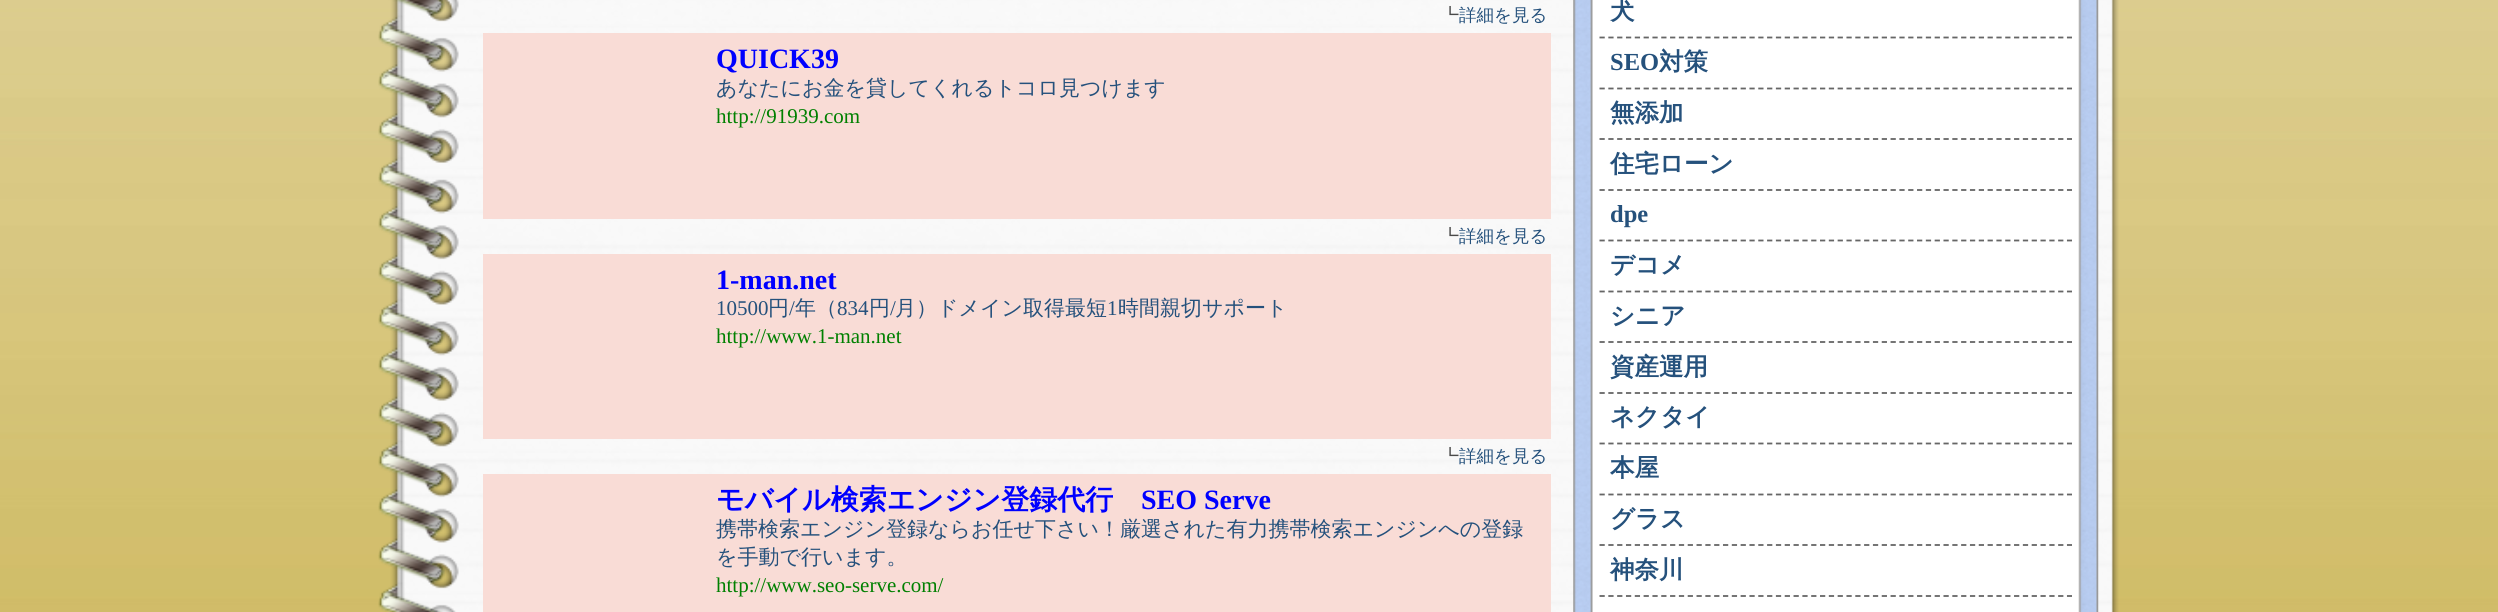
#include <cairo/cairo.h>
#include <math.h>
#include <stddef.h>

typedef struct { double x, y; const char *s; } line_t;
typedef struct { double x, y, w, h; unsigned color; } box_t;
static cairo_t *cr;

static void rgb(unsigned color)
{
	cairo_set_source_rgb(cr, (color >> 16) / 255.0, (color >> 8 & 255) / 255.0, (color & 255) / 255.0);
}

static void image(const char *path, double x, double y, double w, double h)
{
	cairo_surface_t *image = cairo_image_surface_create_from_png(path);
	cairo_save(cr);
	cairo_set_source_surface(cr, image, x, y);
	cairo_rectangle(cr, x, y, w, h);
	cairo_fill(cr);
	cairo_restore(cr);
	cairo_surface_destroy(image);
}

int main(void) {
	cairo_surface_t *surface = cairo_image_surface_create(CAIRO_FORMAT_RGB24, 2498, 612);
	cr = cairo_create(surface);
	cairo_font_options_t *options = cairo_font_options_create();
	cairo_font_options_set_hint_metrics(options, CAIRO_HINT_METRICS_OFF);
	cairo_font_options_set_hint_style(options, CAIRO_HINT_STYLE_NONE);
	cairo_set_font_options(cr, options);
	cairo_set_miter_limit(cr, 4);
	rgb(0xffffff);
	cairo_paint(cr);
	image("img/1.png", 0, 0, 2498, 612);
	image("img/2.png", 378, 0, 1741, 612);
	{
		static const box_t items[] = {
			{483, 33, 1068, 186, 0xf9dcd6},
			{483, 254, 1068, 185, 0xf9dcd6},
			{483, 474, 1068, 138, 0xf9dcd6},
		};
		for (size_t i = 0; i < sizeof items / sizeof *items; i++) {
			rgb(items[i].color);
			cairo_rectangle(cr, items[i].x, items[i].y, items[i].w, items[i].h);
			cairo_fill(cr);
		}
	}
	image("img/3.png", 1573, 0, 526, 612);
	cairo_new_path(cr);
	cairo_move_to(cr, 1599.5, 37.5);
	cairo_line_to(cr, 2072, 37.5);
	rgb(0x666666);
	cairo_set_line_width(cr, 1.8);
	cairo_set_dash(cr, (double[]){5.25, 3.57}, 2, 0);
	cairo_stroke(cr);
	cairo_new_path(cr);
	cairo_move_to(cr, 1599.5, 88.5);
	cairo_line_to(cr, 2072, 88.5);
	cairo_stroke(cr);
	cairo_new_path(cr);
	cairo_move_to(cr, 1599.5, 139);
	cairo_line_to(cr, 2072, 139);
	cairo_stroke(cr);
	cairo_new_path(cr);
	cairo_move_to(cr, 1599.5, 190);
	cairo_line_to(cr, 2072, 190);
	cairo_stroke(cr);
	cairo_new_path(cr);
	cairo_move_to(cr, 1599.5, 240.5);
	cairo_line_to(cr, 2072, 240.5);
	cairo_stroke(cr);
	cairo_new_path(cr);
	cairo_move_to(cr, 1599.5, 291.5);
	cairo_line_to(cr, 2072, 291.5);
	cairo_stroke(cr);
	cairo_new_path(cr);
	cairo_move_to(cr, 1599.5, 342);
	cairo_line_to(cr, 2072, 342);
	cairo_stroke(cr);
	cairo_new_path(cr);
	cairo_move_to(cr, 1599.5, 393);
	cairo_line_to(cr, 2072, 393);
	cairo_stroke(cr);
	cairo_new_path(cr);
	cairo_move_to(cr, 1599.5, 443.5);
	cairo_line_to(cr, 2072, 443.5);
	cairo_stroke(cr);
	cairo_new_path(cr);
	cairo_move_to(cr, 1599.5, 494.5);
	cairo_line_to(cr, 2072, 494.5);
	cairo_stroke(cr);
	cairo_new_path(cr);
	cairo_move_to(cr, 1599.5, 545);
	cairo_line_to(cr, 2072, 545);
	cairo_stroke(cr);
	cairo_new_path(cr);
	cairo_move_to(cr, 1599.5, 596);
	cairo_line_to(cr, 2072, 596);
	cairo_stroke(cr);
	cairo_select_font_face(cr, "WenQuanYi Zen Hei Medium", CAIRO_FONT_SLANT_NORMAL, CAIRO_FONT_WEIGHT_NORMAL);
	cairo_set_font_size(cr, 17.5);
	rgb(0x494949);
	cairo_move_to(cr, 1441, 21);
	cairo_show_text(cr, "┗");
	rgb(0x25517c);
	cairo_move_to(cr, 1459, 21);
	cairo_show_text(cr, "詳細を見る");
	cairo_select_font_face(cr, "Liberation Serif", CAIRO_FONT_SLANT_NORMAL, CAIRO_FONT_WEIGHT_BOLD);
	cairo_set_font_size(cr, 28);
	rgb(0x0000ff);
	cairo_move_to(cr, 716, 68);
	cairo_show_text(cr, "QUICK39");
	cairo_select_font_face(cr, "WenQuanYi Zen Hei Medium", CAIRO_FONT_SLANT_NORMAL, CAIRO_FONT_WEIGHT_NORMAL);
	cairo_set_font_size(cr, 21);
	rgb(0x25517c);
	cairo_move_to(cr, 716, 95);
	cairo_show_text(cr, "あなたにお金を貸してくれるトコロ見つけます");
	cairo_select_font_face(cr, "Liberation Serif", CAIRO_FONT_SLANT_NORMAL, CAIRO_FONT_WEIGHT_NORMAL);
	rgb(0x008000);
	cairo_move_to(cr, 716, 123);
	cairo_show_text(cr, "http://91939.com");
	cairo_select_font_face(cr, "WenQuanYi Zen Hei Medium", CAIRO_FONT_SLANT_NORMAL, CAIRO_FONT_WEIGHT_NORMAL);
	cairo_set_font_size(cr, 17.5);
	rgb(0x494949);
	cairo_move_to(cr, 1441, 242);
	cairo_show_text(cr, "┗");
	rgb(0x25517c);
	cairo_move_to(cr, 1459, 242);
	cairo_show_text(cr, "詳細を見る");
	cairo_select_font_face(cr, "Liberation Serif", CAIRO_FONT_SLANT_NORMAL, CAIRO_FONT_WEIGHT_BOLD);
	cairo_set_font_size(cr, 28);
	rgb(0x0000ff);
	cairo_move_to(cr, 716, 289);
	cairo_show_text(cr, "1-man.net");
	cairo_select_font_face(cr, "Liberation Serif", CAIRO_FONT_SLANT_NORMAL, CAIRO_FONT_WEIGHT_NORMAL);
	cairo_set_font_size(cr, 21);
	rgb(0x25517c);
	cairo_move_to(cr, 716, 315);
	cairo_show_text(cr, "10500");
	cairo_select_font_face(cr, "WenQuanYi Zen Hei Medium", CAIRO_FONT_SLANT_NORMAL, CAIRO_FONT_WEIGHT_NORMAL);
	cairo_move_to(cr, 768, 315);
	cairo_show_text(cr, "円");
	cairo_select_font_face(cr, "Liberation Serif", CAIRO_FONT_SLANT_NORMAL, CAIRO_FONT_WEIGHT_NORMAL);
	cairo_move_to(cr, 789, 315);
	cairo_show_text(cr, "/");
	cairo_select_font_face(cr, "WenQuanYi Zen Hei Medium", CAIRO_FONT_SLANT_NORMAL, CAIRO_FONT_WEIGHT_NORMAL);
	cairo_move_to(cr, 795, 315);
	cairo_show_text(cr, "年（");
	cairo_select_font_face(cr, "Liberation Serif", CAIRO_FONT_SLANT_NORMAL, CAIRO_FONT_WEIGHT_NORMAL);
	cairo_move_to(cr, 837, 315);
	cairo_show_text(cr, "834");
	cairo_select_font_face(cr, "WenQuanYi Zen Hei Medium", CAIRO_FONT_SLANT_NORMAL, CAIRO_FONT_WEIGHT_NORMAL);
	cairo_move_to(cr, 869, 315);
	cairo_show_text(cr, "円");
	cairo_select_font_face(cr, "Liberation Serif", CAIRO_FONT_SLANT_NORMAL, CAIRO_FONT_WEIGHT_NORMAL);
	cairo_move_to(cr, 890, 315);
	cairo_show_text(cr, "/");
	cairo_select_font_face(cr, "WenQuanYi Zen Hei Medium", CAIRO_FONT_SLANT_NORMAL, CAIRO_FONT_WEIGHT_NORMAL);
	cairo_move_to(cr, 895, 315);
	cairo_show_text(cr, "月）ドメイン取得最短");
	cairo_select_font_face(cr, "Liberation Serif", CAIRO_FONT_SLANT_NORMAL, CAIRO_FONT_WEIGHT_NORMAL);
	cairo_move_to(cr, 1107, 315);
	cairo_show_text(cr, "1");
	cairo_select_font_face(cr, "WenQuanYi Zen Hei Medium", CAIRO_FONT_SLANT_NORMAL, CAIRO_FONT_WEIGHT_NORMAL);
	cairo_move_to(cr, 1118, 315);
	cairo_show_text(cr, "時間親切サポート");
	cairo_select_font_face(cr, "Liberation Serif", CAIRO_FONT_SLANT_NORMAL, CAIRO_FONT_WEIGHT_NORMAL);
	rgb(0x008000);
	cairo_move_to(cr, 716, 343);
	cairo_show_text(cr, "http://www.1-man.net");
	cairo_select_font_face(cr, "WenQuanYi Zen Hei Medium", CAIRO_FONT_SLANT_NORMAL, CAIRO_FONT_WEIGHT_NORMAL);
	cairo_set_font_size(cr, 17.5);
	rgb(0x494949);
	cairo_move_to(cr, 1441, 462);
	cairo_show_text(cr, "┗");
	rgb(0x25517c);
	cairo_move_to(cr, 1459, 462);
	cairo_show_text(cr, "詳細を見る");
	cairo_select_font_face(cr, "WenQuanYi Zen Hei", CAIRO_FONT_SLANT_NORMAL, CAIRO_FONT_WEIGHT_BOLD);
	cairo_set_font_size(cr, 28);
	rgb(0x0000ff);
	cairo_move_to(cr, 716, 509);
	cairo_show_text(cr, "モバイル検索エンジン登録代行");
	cairo_select_font_face(cr, "Liberation Serif", CAIRO_FONT_SLANT_NORMAL, CAIRO_FONT_WEIGHT_BOLD);
	cairo_move_to(cr, 1141, 509);
	cairo_show_text(cr, "SEO Serve");
	cairo_select_font_face(cr, "WenQuanYi Zen Hei Medium", CAIRO_FONT_SLANT_NORMAL, CAIRO_FONT_WEIGHT_NORMAL);
	cairo_set_font_size(cr, 21);
	rgb(0x25517c);
	cairo_move_to(cr, 716, 536);
	cairo_show_text(cr, "携帯検索エンジン登録ならお任せ下さい！厳選された有力携帯検索エンジンへの登録");
	cairo_move_to(cr, 716, 564);
	cairo_show_text(cr, "を手動で行います。");
	cairo_select_font_face(cr, "Liberation Serif", CAIRO_FONT_SLANT_NORMAL, CAIRO_FONT_WEIGHT_NORMAL);
	rgb(0x008000);
	cairo_move_to(cr, 716, 592);
	cairo_show_text(cr, "http://www.seo-serve.com/");
	cairo_select_font_face(cr, "WenQuanYi Zen Hei", CAIRO_FONT_SLANT_NORMAL, CAIRO_FONT_WEIGHT_BOLD);
	cairo_set_font_size(cr, 24.5);
	rgb(0x25517c);
	cairo_move_to(cr, 1610, 19);
	cairo_show_text(cr, "犬");
	cairo_select_font_face(cr, "Liberation Serif", CAIRO_FONT_SLANT_NORMAL, CAIRO_FONT_WEIGHT_BOLD);
	cairo_move_to(cr, 1610, 70);
	cairo_show_text(cr, "SEO");
	cairo_select_font_face(cr, "WenQuanYi Zen Hei", CAIRO_FONT_SLANT_NORMAL, CAIRO_FONT_WEIGHT_BOLD);
	{
		static const line_t items[] = {
			{1659, 70, "対策"},
			{1610, 121, "無添加"},
			{1610, 172, "住宅ローン"},
		};
		for (size_t i = 0; i < sizeof items / sizeof *items; i++) {
			cairo_move_to(cr, items[i].x, items[i].y);
			cairo_show_text(cr, items[i].s);
		}
	}
	cairo_select_font_face(cr, "Liberation Serif", CAIRO_FONT_SLANT_NORMAL, CAIRO_FONT_WEIGHT_BOLD);
	cairo_move_to(cr, 1610, 222);
	cairo_show_text(cr, "dpe");
	cairo_select_font_face(cr, "WenQuanYi Zen Hei", CAIRO_FONT_SLANT_NORMAL, CAIRO_FONT_WEIGHT_BOLD);
	{
		static const line_t items[] = {
			{1610, 273, "デコメ"},
			{1610, 324, "シニア"},
			{1610, 375, "資産運用"},
			{1610, 425, "ネクタイ"},
			{1610, 476, "本屋"},
			{1610, 527, "グラス"},
			{1610, 578, "神奈川"},
		};
		for (size_t i = 0; i < sizeof items / sizeof *items; i++) {
			cairo_move_to(cr, items[i].x, items[i].y);
			cairo_show_text(cr, items[i].s);
		}
	}
	cairo_surface_write_to_png(surface, "page.png");
	cairo_font_options_destroy(options);
	cairo_destroy(cr);
	cairo_surface_destroy(surface);
	return 0;
}
